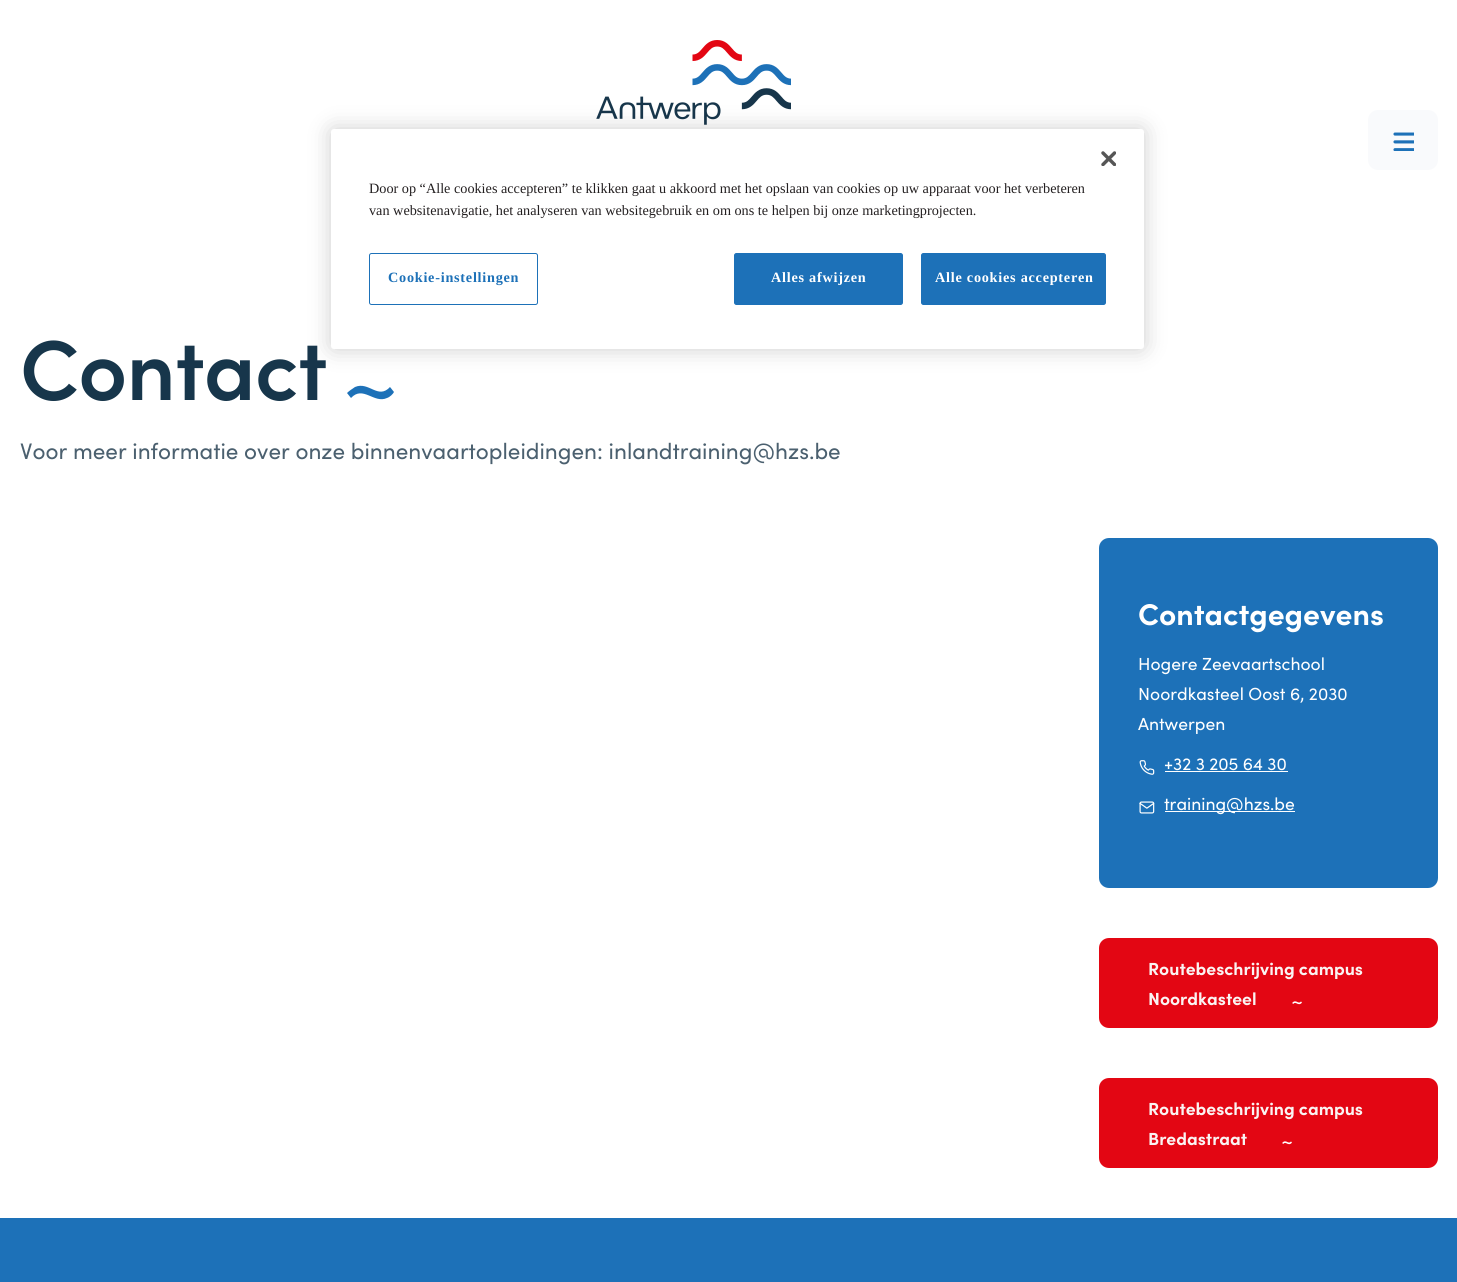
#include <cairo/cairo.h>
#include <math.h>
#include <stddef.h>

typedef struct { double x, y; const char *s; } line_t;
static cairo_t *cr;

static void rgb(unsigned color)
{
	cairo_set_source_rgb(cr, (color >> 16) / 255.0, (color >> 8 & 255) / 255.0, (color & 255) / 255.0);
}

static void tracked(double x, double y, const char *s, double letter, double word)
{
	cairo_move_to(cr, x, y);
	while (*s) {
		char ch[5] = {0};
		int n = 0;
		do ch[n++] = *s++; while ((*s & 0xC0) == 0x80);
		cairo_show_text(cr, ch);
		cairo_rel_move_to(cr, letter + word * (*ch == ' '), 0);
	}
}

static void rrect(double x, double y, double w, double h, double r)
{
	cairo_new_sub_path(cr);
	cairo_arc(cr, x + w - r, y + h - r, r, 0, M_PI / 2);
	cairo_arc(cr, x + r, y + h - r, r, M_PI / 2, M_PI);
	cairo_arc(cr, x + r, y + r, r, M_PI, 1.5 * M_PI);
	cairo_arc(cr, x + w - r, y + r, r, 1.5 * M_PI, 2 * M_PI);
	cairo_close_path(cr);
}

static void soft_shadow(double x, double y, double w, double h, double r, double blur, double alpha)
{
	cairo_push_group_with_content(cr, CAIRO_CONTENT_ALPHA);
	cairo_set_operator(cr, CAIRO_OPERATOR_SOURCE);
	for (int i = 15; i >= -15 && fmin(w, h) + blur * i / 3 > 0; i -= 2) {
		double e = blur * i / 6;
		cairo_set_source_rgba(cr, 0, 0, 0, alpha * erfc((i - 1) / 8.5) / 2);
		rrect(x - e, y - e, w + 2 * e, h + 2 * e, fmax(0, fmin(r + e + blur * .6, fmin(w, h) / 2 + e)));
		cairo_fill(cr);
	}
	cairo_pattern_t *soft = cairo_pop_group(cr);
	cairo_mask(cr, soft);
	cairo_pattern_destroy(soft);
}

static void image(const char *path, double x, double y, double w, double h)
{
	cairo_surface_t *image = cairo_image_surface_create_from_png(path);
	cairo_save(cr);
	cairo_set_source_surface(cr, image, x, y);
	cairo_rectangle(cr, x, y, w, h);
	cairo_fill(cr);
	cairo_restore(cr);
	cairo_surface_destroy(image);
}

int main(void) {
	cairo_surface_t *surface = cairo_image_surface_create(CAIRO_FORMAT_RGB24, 1457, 1282);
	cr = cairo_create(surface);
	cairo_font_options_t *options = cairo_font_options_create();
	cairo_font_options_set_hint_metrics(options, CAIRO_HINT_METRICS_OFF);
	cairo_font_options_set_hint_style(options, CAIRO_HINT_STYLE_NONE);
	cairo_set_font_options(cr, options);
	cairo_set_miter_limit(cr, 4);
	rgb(0xffffff);
	cairo_paint(cr);
	image("img/2.png", 596, 40, 195, 85);
	rgb(0x000000);
	soft_shadow(331, 129, 813, 220, 3, 11, 0.2);
	rgb(0xffffff);
	rrect(331, 129, 813, 220, 3);
	cairo_fill(cr);
	image("img/1.png", 1101, 151, 15, 15);
	rrect(369.5, 253.5, 168, 51, 2);
	rgb(0x1d71b8);
	cairo_set_line_width(cr, 1);
	cairo_stroke(cr);
	rrect(734.5, 253.5, 168, 51, 2);
	cairo_fill_preserve(cr);
	cairo_stroke(cr);
	rrect(921.5, 253.5, 184, 51, 2);
	cairo_fill_preserve(cr);
	cairo_stroke(cr);
	rgb(0xf9fafc);
	rrect(1368, 110, 70, 60, 10);
	cairo_fill(cr);
	image("img/3.png", 1393, 132, 21, 19);
	rgb(0x1d71b8);
	cairo_new_path(cr);
	cairo_move_to(cr, 390, 387);
	cairo_curve_to(cr, 378, 400, 369, 381, 355, 387);
	cairo_curve_to(cr, 352, 389, 349, 391, 347, 393);
	cairo_line_to(cr, 351, 398);
	cairo_curve_to(cr, 363, 385, 374, 404, 387, 398);
	cairo_curve_to(cr, 390, 397, 393, 394, 394, 392);
	cairo_close_path(cr);
	cairo_fill(cr);
	rrect(1099, 538, 339, 350, 10);
	cairo_fill(cr);
	image("img/4.png", 1139, 760, 16, 15);
	rgb(0xffffff);
	cairo_rectangle(cr, 1165, 771, 123, 1);
	cairo_fill(cr);
	image("img/5.png", 1139, 801, 16, 13);
	cairo_rectangle(cr, 1165, 811, 130, 1);
	cairo_fill(cr);
	rgb(0xe30613);
	rrect(1099, 938, 339, 90, 10);
	cairo_fill(cr);
	image("img/6.png", 1292, 1001, 10, 4);
	rrect(1099, 1078, 339, 90, 10);
	cairo_fill(cr);
	image("img/6.png", 1282, 1141, 10, 4);
	rgb(0x1d71b8);
	cairo_rectangle(cr, 0, 1218, 1457, 64);
	cairo_fill(cr);
	cairo_select_font_face(cr, "Liberation Serif", CAIRO_FONT_SLANT_NORMAL, CAIRO_FONT_WEIGHT_NORMAL);
	cairo_set_font_size(cr, 14.23);
	rgb(0x231f20);
	cairo_move_to(cr, 369, 193);
	cairo_show_text(cr, "Door op “Alle cookies accepteren” te klikken gaat u akkoord met het opslaan van cookies op uw apparaat voor het verbeteren");
	cairo_move_to(cr, 369, 215);
	cairo_show_text(cr, "van websitenavigatie, het analyseren van websitegebruik en om ons te helpen bij onze marketingprojecten.");
	cairo_select_font_face(cr, "Liberation Serif", CAIRO_FONT_SLANT_NORMAL, CAIRO_FONT_WEIGHT_BOLD);
	rgb(0x1d71b8);
	tracked(388, 282, "Cookie-instellingen", 0.75, 0);
	rgb(0xffffff);
	tracked(771, 282, "Alles afwijzen", 0.75, 0);
	tracked(935, 282, "Alle cookies accepteren", 0.75, 0);
	cairo_select_font_face(cr, "Sofia SemiBold", CAIRO_FONT_SLANT_NORMAL, CAIRO_FONT_WEIGHT_NORMAL);
	cairo_set_font_size(cr, 85);
	rgb(0x17364b);
	tracked(20, 400, "Contact", -0.75, 0);
	cairo_select_font_face(cr, "Sofia", CAIRO_FONT_SLANT_NORMAL, CAIRO_FONT_WEIGHT_NORMAL);
	cairo_set_font_size(cr, 22.5);
	rgb(0x4b606f);
	cairo_move_to(cr, 20, 459);
	cairo_show_text(cr, "Voor meer informatie over onze binnenvaartopleidingen: inlandtraining@hzs.be");
	cairo_select_font_face(cr, "Sofia", CAIRO_FONT_SLANT_NORMAL, CAIRO_FONT_WEIGHT_BOLD);
	cairo_set_font_size(cr, 30);
	rgb(0xffffff);
	cairo_move_to(cr, 1138, 625);
	cairo_show_text(cr, "Contactgegevens");
	cairo_select_font_face(cr, "Sofia", CAIRO_FONT_SLANT_NORMAL, CAIRO_FONT_WEIGHT_NORMAL);
	cairo_set_font_size(cr, 17.5);
	{
		static const line_t items[] = {
			{1138, 670, "Hogere Zeevaartschool"},
			{1138, 700, "Noordkasteel Oost 6, 2030"},
			{1138, 730, "Antwerpen"},
			{1164, 770, "+32 3 205 64 30"},
			{1164, 810, "training@hzs.be"},
		};
		for (size_t i = 0; i < sizeof items / sizeof *items; i++) {
			cairo_move_to(cr, items[i].x, items[i].y);
			cairo_show_text(cr, items[i].s);
		}
	}
	cairo_select_font_face(cr, "Sofia", CAIRO_FONT_SLANT_NORMAL, CAIRO_FONT_WEIGHT_BOLD);
	rgb(0xfaf3f2);
	{
		static const line_t items[] = {
			{1148, 975, "Routebeschrijving campus"},
			{1148, 1005, "Noordkasteel"},
			{1148, 1115, "Routebeschrijving campus"},
			{1148, 1145, "Bredastraat"},
		};
		for (size_t i = 0; i < sizeof items / sizeof *items; i++) {
			cairo_move_to(cr, items[i].x, items[i].y);
			cairo_show_text(cr, items[i].s);
		}
	}
	cairo_surface_write_to_png(surface, "page.png");
	cairo_font_options_destroy(options);
	cairo_destroy(cr);
	cairo_surface_destroy(surface);
	return 0;
}
